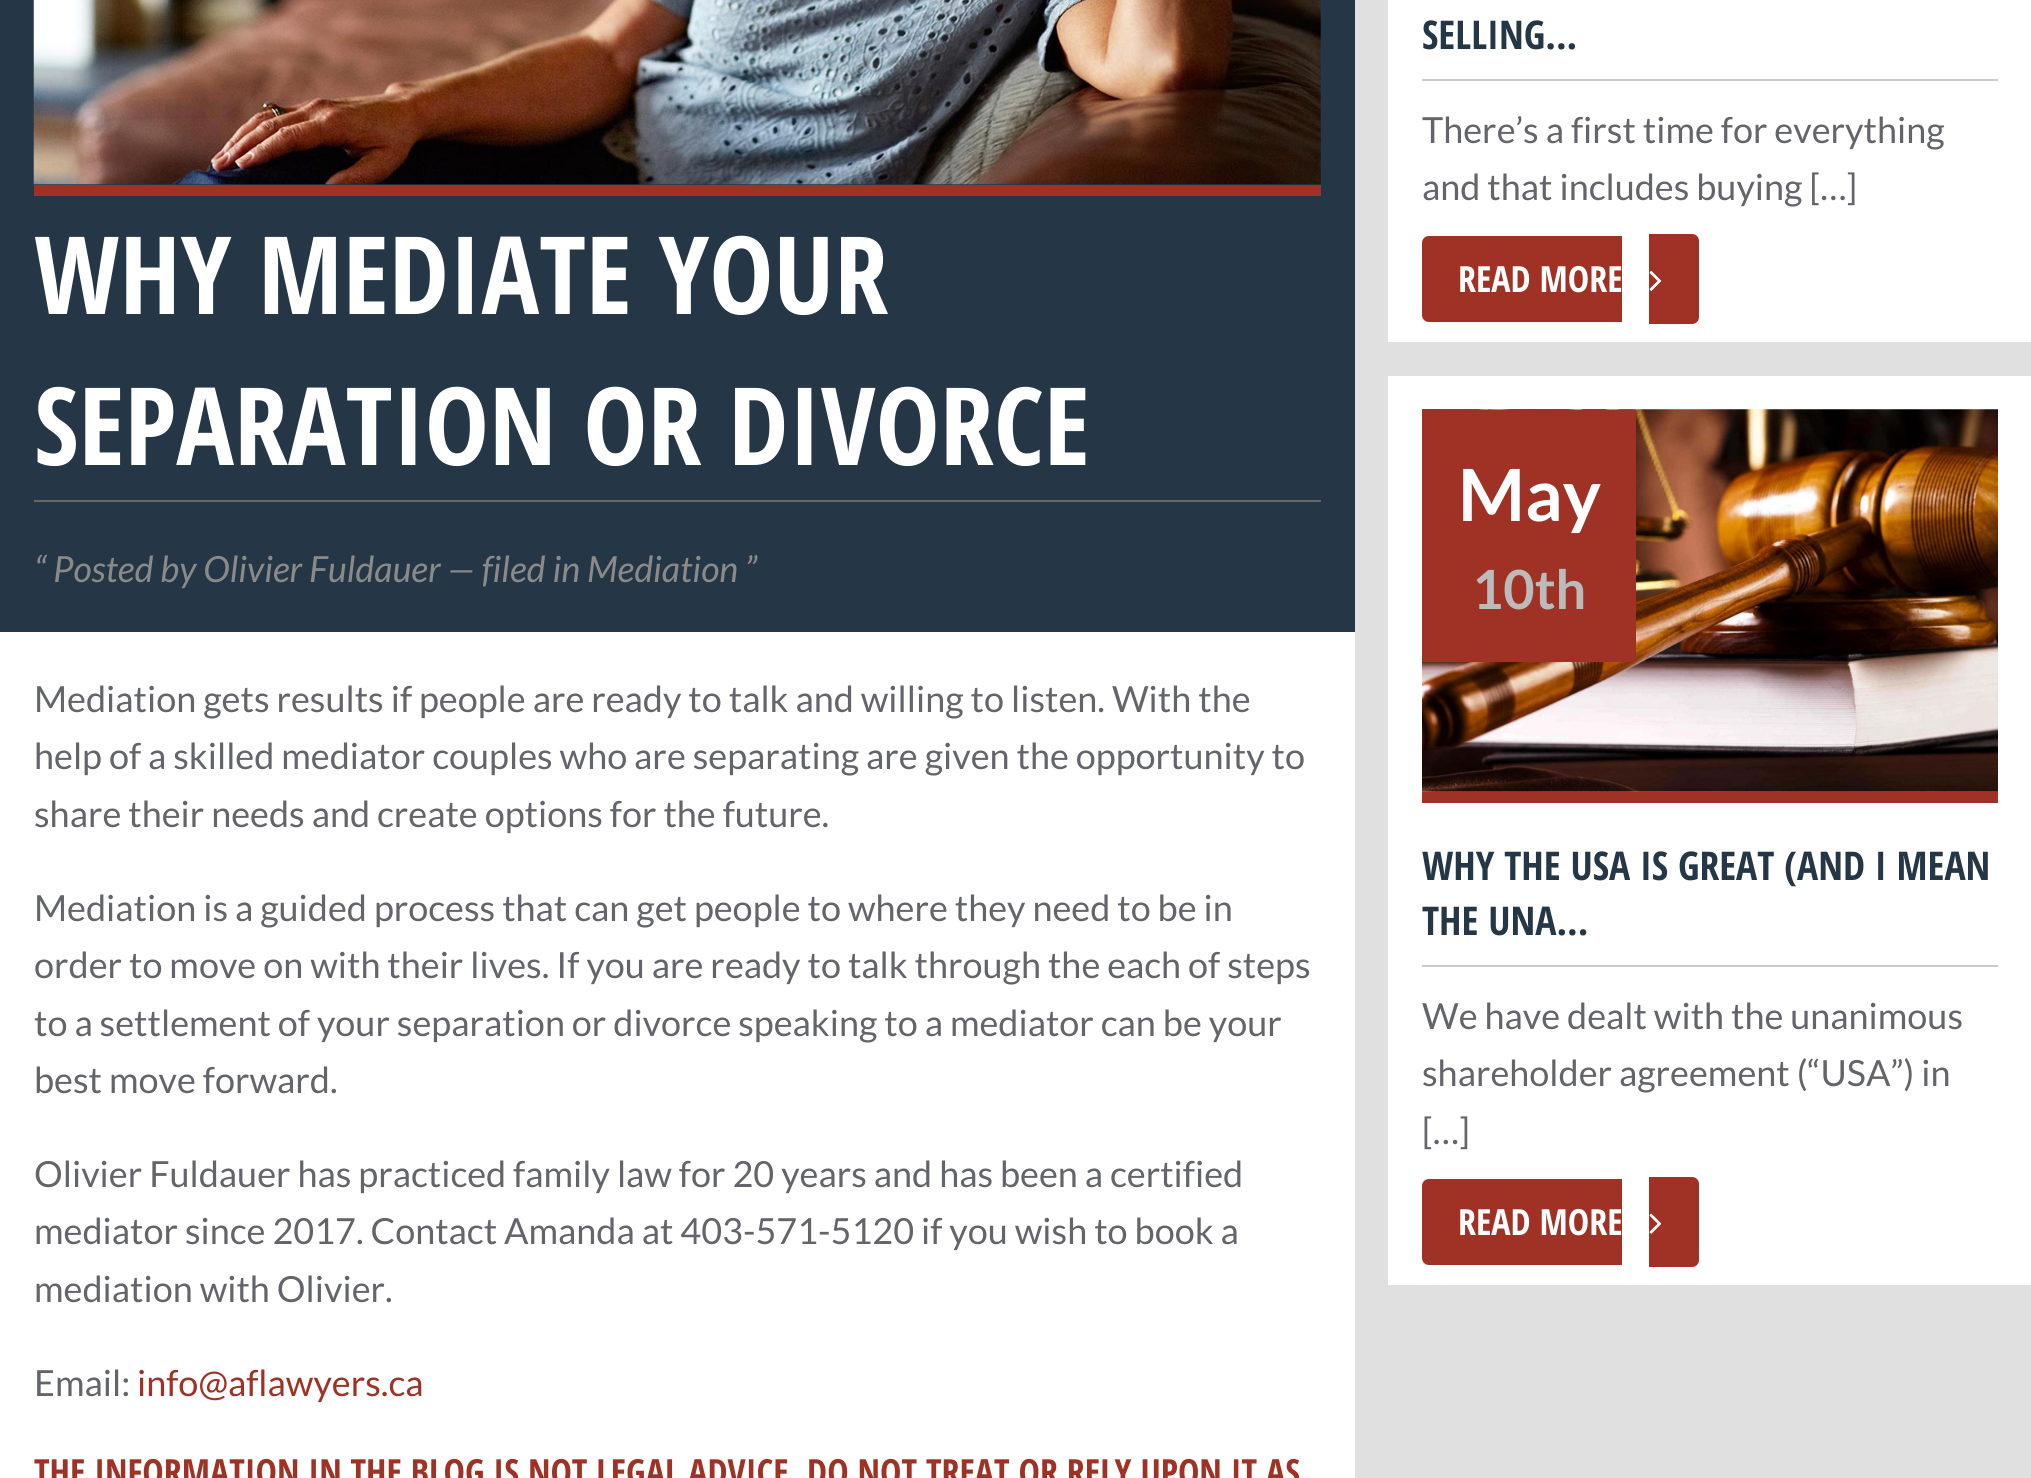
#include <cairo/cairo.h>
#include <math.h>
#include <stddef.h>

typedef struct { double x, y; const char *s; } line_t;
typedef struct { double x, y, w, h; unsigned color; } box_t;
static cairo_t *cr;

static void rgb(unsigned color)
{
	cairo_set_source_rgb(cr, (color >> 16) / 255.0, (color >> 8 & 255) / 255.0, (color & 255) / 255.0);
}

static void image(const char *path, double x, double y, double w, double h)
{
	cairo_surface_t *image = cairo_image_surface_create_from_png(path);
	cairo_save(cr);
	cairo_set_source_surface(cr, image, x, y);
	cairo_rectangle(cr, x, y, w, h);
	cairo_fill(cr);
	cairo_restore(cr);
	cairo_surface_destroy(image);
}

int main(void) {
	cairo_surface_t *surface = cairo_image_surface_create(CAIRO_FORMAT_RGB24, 2031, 1478);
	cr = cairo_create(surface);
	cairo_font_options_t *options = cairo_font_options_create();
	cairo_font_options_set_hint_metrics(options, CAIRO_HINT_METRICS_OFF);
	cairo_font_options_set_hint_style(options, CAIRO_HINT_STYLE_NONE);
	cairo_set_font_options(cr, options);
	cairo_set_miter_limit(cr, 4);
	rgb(0xe0e0e1);
	cairo_paint(cr);
	rgb(0x253746);
	cairo_rectangle(cr, 0, 0, 1355, 632);
	cairo_fill(cr);
	rgb(0x9f3224);
	cairo_rectangle(cr, 34, 185, 1287, 11);
	cairo_fill(cr);
	image("img/1.png", 33, 0, 1288, 185);
	{
		static const box_t items[] = {
			{34, 500, 1287, 2, 0x666666},
			{0, 632, 1355, 846, 0xffffff},
			{1388, 0, 643, 342, 0xffffff},
			{1422, 79, 576, 2, 0xcacaca},
		};
		for (size_t i = 0; i < sizeof items / sizeof *items; i++) {
			rgb(items[i].color);
			cairo_rectangle(cr, items[i].x, items[i].y, items[i].w, items[i].h);
			cairo_fill(cr);
		}
	}
	rgb(0x9f3224);
	cairo_new_path(cr);
	cairo_move_to(cr, 1429, 236);
	cairo_line_to(cr, 1622, 236);
	cairo_line_to(cr, 1622, 322);
	cairo_line_to(cr, 1429, 322);
	cairo_curve_to(cr, 1425, 322, 1422, 319, 1422, 315);
	cairo_line_to(cr, 1422, 243);
	cairo_curve_to(cr, 1422, 239, 1425, 236, 1429, 236);
	cairo_close_path(cr);
	cairo_fill(cr);
	cairo_new_path(cr);
	cairo_move_to(cr, 1649, 234);
	cairo_line_to(cr, 1692, 234);
	cairo_curve_to(cr, 1696, 234, 1699, 237, 1699, 241);
	cairo_line_to(cr, 1699, 317);
	cairo_curve_to(cr, 1699, 321, 1696, 324, 1692, 324);
	cairo_line_to(cr, 1649, 324);
	cairo_close_path(cr);
	cairo_fill(cr);
	image("img/2.png", 1649, 271, 13, 20);
	rgb(0xffffff);
	cairo_rectangle(cr, 1388, 376, 643, 909);
	cairo_fill(cr);
	rgb(0x9f3224);
	cairo_rectangle(cr, 1422, 792, 576, 11);
	cairo_fill(cr);
	image("img/3.png", 1422, 409, 576, 383);
	cairo_rectangle(cr, 1422, 410, 214, 252);
	cairo_fill(cr);
	rgb(0xcacaca);
	cairo_rectangle(cr, 1422, 965, 576, 2);
	cairo_fill(cr);
	rgb(0x9f3224);
	cairo_new_path(cr);
	cairo_move_to(cr, 1429, 1179);
	cairo_line_to(cr, 1622, 1179);
	cairo_line_to(cr, 1622, 1265);
	cairo_line_to(cr, 1429, 1265);
	cairo_curve_to(cr, 1425, 1265, 1422, 1262, 1422, 1258);
	cairo_line_to(cr, 1422, 1186);
	cairo_curve_to(cr, 1422, 1182, 1425, 1179, 1429, 1179);
	cairo_close_path(cr);
	cairo_fill(cr);
	cairo_new_path(cr);
	cairo_move_to(cr, 1649, 1177);
	cairo_line_to(cr, 1692, 1177);
	cairo_curve_to(cr, 1696, 1177, 1699, 1180, 1699, 1184);
	cairo_line_to(cr, 1699, 1260);
	cairo_curve_to(cr, 1699, 1264, 1696, 1267, 1692, 1267);
	cairo_line_to(cr, 1649, 1267);
	cairo_close_path(cr);
	cairo_fill(cr);
	image("img/4.png", 1649, 1213, 13, 21);
	cairo_select_font_face(cr, "Open Sans Condensed", CAIRO_FONT_SLANT_NORMAL, CAIRO_FONT_WEIGHT_BOLD);
	cairo_set_font_size(cr, 108);
	rgb(0xffffff);
	cairo_move_to(cr, 34, 314);
	cairo_show_text(cr, "WHY MEDIATE YOUR");
	cairo_move_to(cr, 34, 465);
	cairo_show_text(cr, "SEPARATION OR DIVORCE");
	cairo_select_font_face(cr, "Lato", CAIRO_FONT_SLANT_ITALIC, CAIRO_FONT_WEIGHT_NORMAL);
	cairo_set_font_size(cr, 36);
	rgb(0x8a8a8a);
	cairo_move_to(cr, 34, 582);
	cairo_show_text(cr, "“ Posted by Olivier Fuldauer — filed in Mediation ”");
	cairo_select_font_face(cr, "Lato", CAIRO_FONT_SLANT_NORMAL, CAIRO_FONT_WEIGHT_NORMAL);
	rgb(0x63656a);
	{
		static const line_t items[] = {
			{34, 712, "Mediation gets results if people are ready to talk and willing to listen. With the"},
			{34, 769, "help of a skilled mediator couples who are separating are given the opportunity to"},
			{34, 827, "share their needs and create options for the future."},
			{34, 921, "Mediation is a guided process that can get people to where they need to be in"},
			{34, 978, "order to move on with their lives. If you are ready to talk through the each of steps"},
			{34, 1036, "to a settlement of your separation or divorce speaking to a mediator can be your"},
			{34, 1093, "best move forward."},
			{34, 1187, "Olivier Fuldauer has practiced family law for 20 years and has been a certified"},
			{34, 1244, "mediator since 2017. Contact Amanda at 403-571-5120 if you wish to book a"},
			{34, 1302, "mediation with Olivier."},
			{34, 1396, "Email:"},
		};
		for (size_t i = 0; i < sizeof items / sizeof *items; i++) {
			cairo_move_to(cr, items[i].x, items[i].y);
			cairo_show_text(cr, items[i].s);
		}
	}
	rgb(0x9f3224);
	cairo_move_to(cr, 137, 1396);
	cairo_show_text(cr, "info@aflawyers.ca");
	cairo_select_font_face(cr, "Open Sans Condensed", CAIRO_FONT_SLANT_NORMAL, CAIRO_FONT_WEIGHT_BOLD);
	cairo_move_to(cr, 34, 1485);
	cairo_show_text(cr, "THE INFORMATION IN THE BLOG IS NOT LEGAL ADVICE. DO NOT TREAT OR RELY UPON IT AS");
	cairo_set_font_size(cr, 39.6);
	rgb(0x253746);
	cairo_move_to(cr, 1422, 49);
	cairo_show_text(cr, "SELLING...");
	cairo_select_font_face(cr, "Lato", CAIRO_FONT_SLANT_NORMAL, CAIRO_FONT_WEIGHT_NORMAL);
	cairo_set_font_size(cr, 36);
	rgb(0x63656a);
	cairo_move_to(cr, 1422, 143);
	cairo_show_text(cr, "There’s a first time for everything");
	cairo_move_to(cr, 1422, 200);
	cairo_show_text(cr, "and that includes buying […]");
	cairo_select_font_face(cr, "Open Sans Condensed", CAIRO_FONT_SLANT_NORMAL, CAIRO_FONT_WEIGHT_BOLD);
	rgb(0xffffff);
	cairo_move_to(cr, 1458, 292);
	cairo_show_text(cr, "READ MORE");
	cairo_select_font_face(cr, "Lato", CAIRO_FONT_SLANT_NORMAL, CAIRO_FONT_WEIGHT_BOLD);
	cairo_set_font_size(cr, 72);
	cairo_move_to(cr, 1458, 521);
	cairo_show_text(cr, "May");
	cairo_set_font_size(cr, 54);
	rgb(0xbbbbbb);
	cairo_move_to(cr, 1472, 609);
	cairo_show_text(cr, "10th");
	cairo_select_font_face(cr, "Open Sans Condensed", CAIRO_FONT_SLANT_NORMAL, CAIRO_FONT_WEIGHT_BOLD);
	cairo_set_font_size(cr, 39.6);
	rgb(0x253746);
	cairo_move_to(cr, 1422, 880);
	cairo_show_text(cr, "WHY THE USA IS GREAT (AND I MEAN");
	cairo_move_to(cr, 1422, 935);
	cairo_show_text(cr, "THE UNA...");
	cairo_select_font_face(cr, "Lato", CAIRO_FONT_SLANT_NORMAL, CAIRO_FONT_WEIGHT_NORMAL);
	cairo_set_font_size(cr, 36);
	rgb(0x63656a);
	{
		static const line_t items[] = {
			{1422, 1029, "We have dealt with the unanimous"},
			{1422, 1086, "shareholder agreement (“USA”) in"},
			{1422, 1144, "[…]"},
		};
		for (size_t i = 0; i < sizeof items / sizeof *items; i++) {
			cairo_move_to(cr, items[i].x, items[i].y);
			cairo_show_text(cr, items[i].s);
		}
	}
	cairo_select_font_face(cr, "Open Sans Condensed", CAIRO_FONT_SLANT_NORMAL, CAIRO_FONT_WEIGHT_BOLD);
	rgb(0xffffff);
	cairo_move_to(cr, 1458, 1235);
	cairo_show_text(cr, "READ MORE");
	cairo_surface_write_to_png(surface, "page.png");
	cairo_font_options_destroy(options);
	cairo_destroy(cr);
	cairo_surface_destroy(surface);
	return 0;
}
